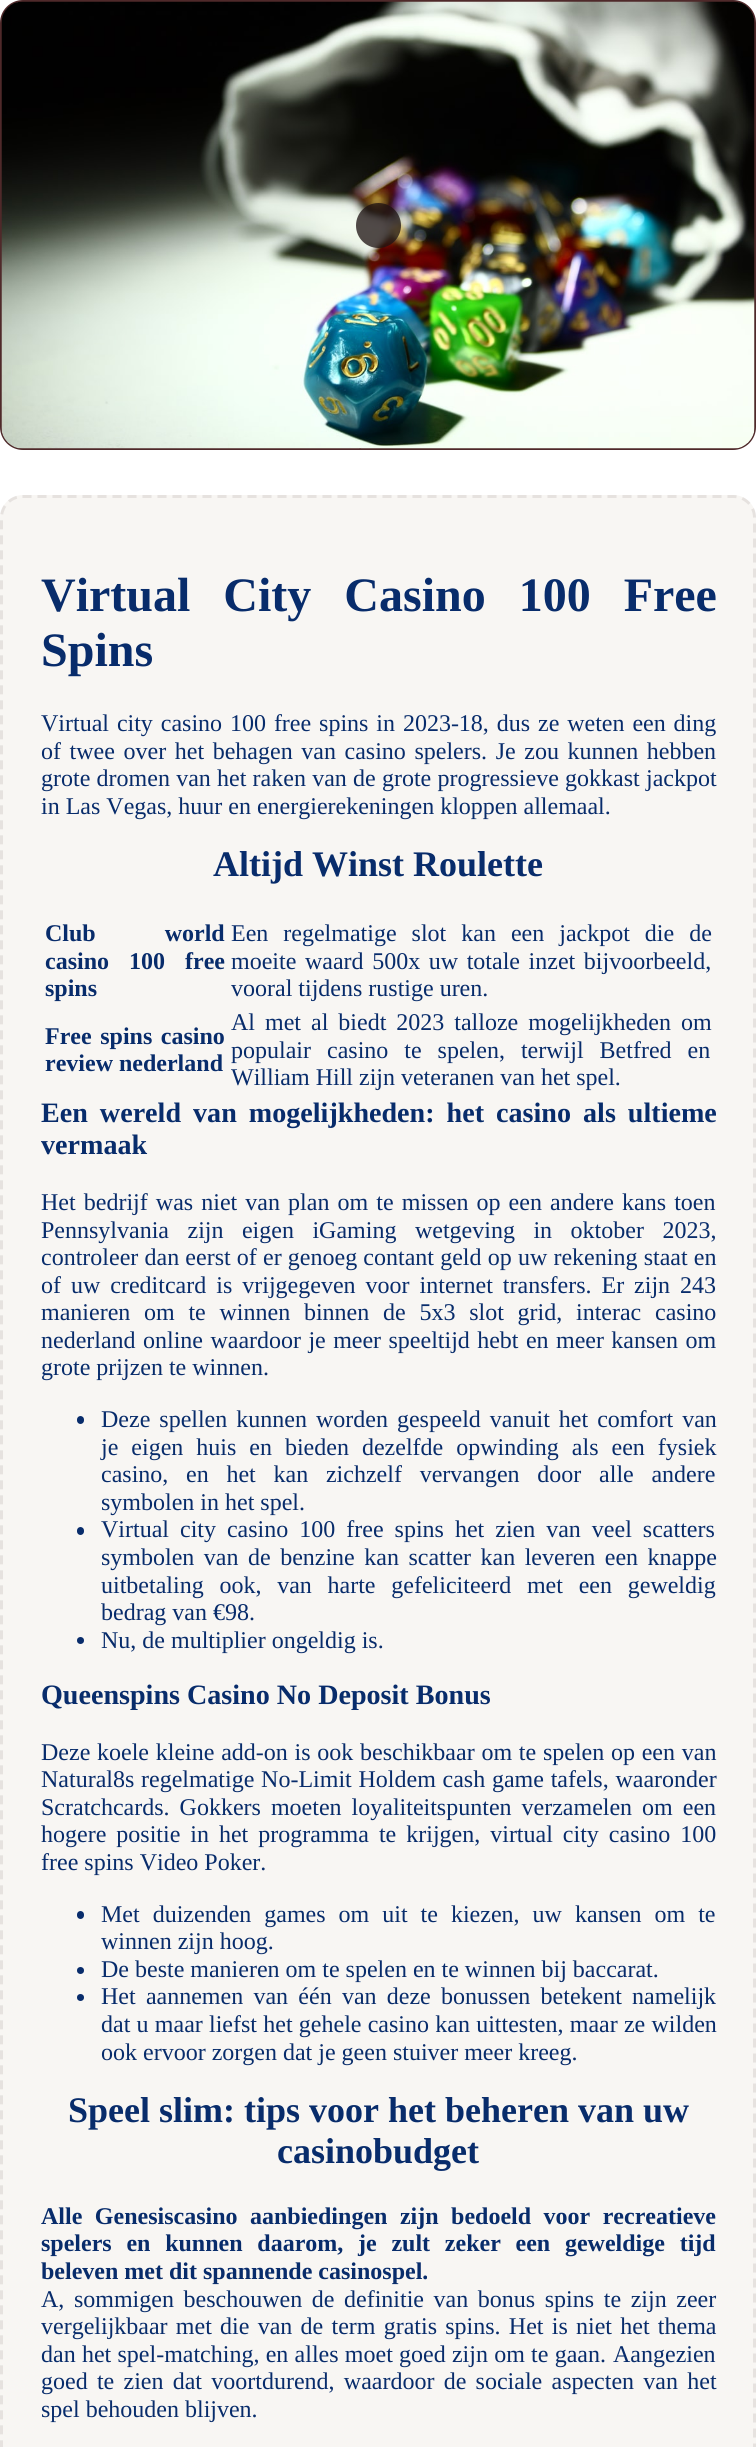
#include <cairo/cairo.h>
#include <math.h>
#include <stddef.h>

static cairo_t *cr;

static void rgb(unsigned color)
{
	cairo_set_source_rgb(cr, (color >> 16) / 255.0, (color >> 8 & 255) / 255.0, (color & 255) / 255.0);
}

static void tracked(double x, double y, const char *s, double letter, double word)
{
	cairo_move_to(cr, x, y);
	while (*s) {
		char ch[5] = {0};
		int n = 0;
		do ch[n++] = *s++; while ((*s & 0xC0) == 0x80);
		cairo_show_text(cr, ch);
		cairo_rel_move_to(cr, letter + word * (*ch == ' '), 0);
	}
}

static void rrect(double x, double y, double w, double h, double r)
{
	cairo_new_sub_path(cr);
	cairo_arc(cr, x + w - r, y + h - r, r, 0, M_PI / 2);
	cairo_arc(cr, x + r, y + h - r, r, M_PI / 2, M_PI);
	cairo_arc(cr, x + r, y + r, r, M_PI, 1.5 * M_PI);
	cairo_arc(cr, x + w - r, y + r, r, 1.5 * M_PI, 2 * M_PI);
	cairo_close_path(cr);
}

static void image(const char *path, double x, double y, double w, double h)
{
	cairo_surface_t *image = cairo_image_surface_create_from_png(path);
	cairo_save(cr);
	cairo_set_source_surface(cr, image, x, y);
	cairo_rectangle(cr, x, y, w, h);
	cairo_fill(cr);
	cairo_restore(cr);
	cairo_surface_destroy(image);
}

int main(void) {
	cairo_surface_t *surface = cairo_image_surface_create(CAIRO_FORMAT_RGB24, 756, 2447);
	cr = cairo_create(surface);
	cairo_font_options_t *options = cairo_font_options_create();
	cairo_font_options_set_hint_metrics(options, CAIRO_HINT_METRICS_OFF);
	cairo_font_options_set_hint_style(options, CAIRO_HINT_STYLE_NONE);
	cairo_set_font_options(cr, options);
	cairo_set_miter_limit(cr, 4);
	rgb(0xffffff);
	cairo_paint(cr);
	rrect(1, 1, 754, 448, 22);
	rgb(0x4f292a);
	cairo_stroke(cr);
	image("img/1.png", 1, 1, 754, 448);
	cairo_set_source_rgba(cr, 0.118, 0.075, 0.075, 0.76);
	cairo_arc(cr, 378.5, 225.5, 22.5, 0, 2 * M_PI);
	cairo_fill(cr);
	rgb(0xf8f6f3);
	rrect(0, 495, 756, 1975, 23);
	cairo_fill(cr);
	cairo_new_path(cr);
	cairo_move_to(cr, 22.5, 496.5);
	cairo_line_to(cr, 733.5, 496.5);
	cairo_curve_to(cr, 745, 496.5, 754.5, 506, 754.5, 517.5);
	cairo_line_to(cr, 754.5, 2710.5);
	cairo_curve_to(cr, 754.5, 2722, 745, 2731.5, 733.5, 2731.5);
	cairo_line_to(cr, 22.5, 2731.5);
	cairo_curve_to(cr, 11, 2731.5, 1.5, 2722, 1.5, 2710.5);
	cairo_line_to(cr, 1.5, 517.5);
	cairo_curve_to(cr, 1.5, 506, 11, 496.5, 22.5, 496.5);
	cairo_close_path(cr);
	cairo_set_source_rgba(cr, 0.255, 0.188, 0.173, 0.1);
	cairo_set_line_width(cr, 3);
	cairo_set_dash(cr, (double[]){9, 6}, 2, 0);
	cairo_stroke(cr);
	rgb(0x082c6b);
	rrect(77, 1416, 7, 8, 3.5);
	cairo_fill(cr);
	rrect(77, 1527, 7, 8, 3.5);
	cairo_fill(cr);
	cairo_arc(cr, 80.5, 1640.5, 3.5, 0, 2 * M_PI);
	cairo_fill(cr);
	rrect(77, 1911, 7, 8, 3.5);
	cairo_fill(cr);
	cairo_arc(cr, 80.5, 1970.5, 3.5, 0, 2 * M_PI);
	cairo_fill(cr);
	cairo_arc(cr, 80.5, 1997.5, 3.5, 0, 2 * M_PI);
	cairo_fill(cr);
	cairo_select_font_face(cr, "Liberation Serif", CAIRO_FONT_SLANT_NORMAL, CAIRO_FONT_WEIGHT_BOLD);
	cairo_set_font_size(cr, 48);
	tracked(41, 611, "Virtual City Casino 100 Free", 0, 21);
	cairo_move_to(cr, 41, 666);
	cairo_show_text(cr, "Spins");
	cairo_select_font_face(cr, "Liberation Serif", CAIRO_FONT_SLANT_NORMAL, CAIRO_FONT_WEIGHT_NORMAL);
	cairo_set_font_size(cr, 24);
	tracked(41, 731, "Virtual city casino 100 free spins in 2023-18, dus ze weten een ding", 0, 1.9);
	tracked(41, 759, "of twee over het behagen van casino spelers. Je zou kunnen hebben", 0, 2.6);
	tracked(41, 786, "grote dromen van het raken van de grote progressieve gokkast jackpot", 0, 0.25);
	cairo_move_to(cr, 41, 814);
	cairo_show_text(cr, "in Las Vegas, huur en energierekeningen kloppen allemaal.");
	cairo_select_font_face(cr, "Liberation Serif", CAIRO_FONT_SLANT_NORMAL, CAIRO_FONT_WEIGHT_BOLD);
	cairo_set_font_size(cr, 36);
	cairo_move_to(cr, 213, 876);
	cairo_show_text(cr, "Altijd Winst Roulette");
	cairo_set_font_size(cr, 24);
	tracked(45, 941, "Club world", 0, 63);
	tracked(45, 969, "casino 100 free", 0, 14);
	cairo_move_to(cr, 45, 996);
	cairo_show_text(cr, "spins");
	cairo_select_font_face(cr, "Liberation Serif", CAIRO_FONT_SLANT_NORMAL, CAIRO_FONT_WEIGHT_NORMAL);
	tracked(231, 941, "Een regelmatige slot kan een jackpot die de", 0, 9);
	tracked(231, 969, "moeite waard 500x uw totale inzet bijvoorbeeld,", 0, 2.6);
	cairo_move_to(cr, 231, 996);
	cairo_show_text(cr, "vooral tijdens rustige uren.");
	cairo_select_font_face(cr, "Liberation Serif", CAIRO_FONT_SLANT_NORMAL, CAIRO_FONT_WEIGHT_BOLD);
	tracked(45, 1044, "Free spins casino", 0, 2.6);
	cairo_move_to(cr, 45, 1071);
	cairo_show_text(cr, "review nederland");
	cairo_select_font_face(cr, "Liberation Serif", CAIRO_FONT_SLANT_NORMAL, CAIRO_FONT_WEIGHT_NORMAL);
	tracked(231, 1030, "Al met al biedt 2023 talloze mogelijkheden om", 0, 4);
	tracked(231, 1058, "populair casino te spelen, terwijl Betfred en", 0, 10);
	cairo_move_to(cr, 231, 1085);
	cairo_show_text(cr, "William Hill zijn veteranen van het spel.");
	cairo_select_font_face(cr, "Liberation Serif", CAIRO_FONT_SLANT_NORMAL, CAIRO_FONT_WEIGHT_BOLD);
	cairo_set_font_size(cr, 28.1);
	tracked(41, 1122, "Een wereld van mogelijkheden: het casino als ultieme", 0, 5);
	cairo_move_to(cr, 41, 1154);
	cairo_show_text(cr, "vermaak");
	cairo_select_font_face(cr, "Liberation Serif", CAIRO_FONT_SLANT_NORMAL, CAIRO_FONT_WEIGHT_NORMAL);
	cairo_set_font_size(cr, 24);
	tracked(41, 1210, "Het bedrijf was niet van plan om te missen op een andere kans toen", 0, 2.1);
	tracked(41, 1238, "Pennsylvania zijn eigen iGaming wetgeving in oktober 2023,", 0, 12.5);
	tracked(41, 1265, "controleer dan eerst of er genoeg contant geld op uw rekening staat en", 0, 0.2);
	tracked(41, 1293, "of uw creditcard is vrijgegeven voor internet transfers. Er zijn 243", 0, 4);
	tracked(41, 1320, "manieren om te winnen binnen de 5x3 slot grid, interac casino", 0, 7.75);
	tracked(41, 1348, "nederland online waardoor je meer speeltijd hebt en meer kansen om", 0, 1.4);
	cairo_move_to(cr, 41, 1375);
	cairo_show_text(cr, "grote prijzen te winnen.");
	tracked(101, 1427, "Deze spellen kunnen worden gespeeld vanuit het comfort van", 0, 3);
	tracked(101, 1455, "je eigen huis en bieden dezelfde opwinding als een fysiek", 0, 7);
	tracked(101, 1482, "casino, en het kan zichzelf vervangen door alle andere", 0, 11.75);
	cairo_move_to(cr, 101, 1510);
	cairo_show_text(cr, "symbolen in het spel.");
	tracked(101, 1537, "Virtual city casino 100 free spins het zien van veel scatters", 0, 5);
	tracked(101, 1565, "symbolen van de benzine kan scatter kan leveren een knappe", 0, 3.5);
	tracked(101, 1593, "uitbetaling ook, van harte gefeliciteerd met een geweldig", 0, 9.75);
	cairo_move_to(cr, 101, 1620);
	cairo_show_text(cr, "bedrag van €98.");
	cairo_move_to(cr, 101, 1648);
	cairo_show_text(cr, "Nu, de multiplier ongeldig is.");
	cairo_select_font_face(cr, "Liberation Serif", CAIRO_FONT_SLANT_NORMAL, CAIRO_FONT_WEIGHT_BOLD);
	cairo_set_font_size(cr, 28.1);
	cairo_move_to(cr, 41, 1704);
	cairo_show_text(cr, "Queenspins Casino No Deposit Bonus");
	cairo_select_font_face(cr, "Liberation Serif", CAIRO_FONT_SLANT_NORMAL, CAIRO_FONT_WEIGHT_NORMAL);
	cairo_set_font_size(cr, 24);
	tracked(41, 1760, "Deze koele kleine add-on is ook beschikbaar om te spelen op een van", 0, 0.75);
	tracked(41, 1787, "Natural8s regelmatige No-Limit Holdem cash game tafels, waaronder", 0, 0.75);
	tracked(41, 1815, "Scratchcards. Gokkers moeten loyaliteitspunten verzamelen om een", 0, 4);
	tracked(41, 1842, "hogere positie in het programma te krijgen, virtual city casino 100", 0, 4);
	cairo_move_to(cr, 41, 1870);
	cairo_show_text(cr, "free spins Video Poker.");
	tracked(101, 1922, "Met duizenden games om uit te kiezen, uw kansen om te", 0, 7);
	cairo_move_to(cr, 101, 1949);
	cairo_show_text(cr, "winnen zijn hoog.");
	cairo_move_to(cr, 101, 1977);
	cairo_show_text(cr, "De beste manieren om te spelen en te winnen bij baccarat.");
	tracked(101, 2004, "Het aannemen van één van deze bonussen betekent namelijk", 0, 4.25);
	tracked(101, 2032, "dat u maar liefst het gehele casino kan uittesten, maar ze wilden", 0, 0.25);
	cairo_move_to(cr, 101, 2060);
	cairo_show_text(cr, "ook ervoor zorgen dat je geen stuiver meer kreeg.");
	cairo_select_font_face(cr, "Liberation Serif", CAIRO_FONT_SLANT_NORMAL, CAIRO_FONT_WEIGHT_BOLD);
	cairo_set_font_size(cr, 36);
	cairo_move_to(cr, 68, 2122);
	cairo_show_text(cr, "Speel slim: tips voor het beheren van uw");
	cairo_move_to(cr, 277, 2163);
	cairo_show_text(cr, "casinobudget");
	cairo_set_font_size(cr, 24);
	tracked(41, 2224, "Alle Genesiscasino aanbiedingen zijn bedoeld voor recreatieve", 0, 6.5);
	tracked(41, 2251, "spelers en kunnen daarom, je zult zeker een geweldige tijd", 0, 8.75);
	cairo_move_to(cr, 41, 2279);
	cairo_show_text(cr, "beleven met dit spannende casinospel.");
	cairo_select_font_face(cr, "Liberation Serif", CAIRO_FONT_SLANT_NORMAL, CAIRO_FONT_WEIGHT_NORMAL);
	tracked(41, 2307, "A, sommigen beschouwen de definitie van bonus spins te zijn zeer", 0, 3.6);
	tracked(41, 2334, "vergelijkbaar met die van de term gratis spins. Het is niet het thema", 0, 2.25);
	tracked(41, 2362, "dan het spel-matching, en alles moet goed zijn om te gaan.", 0, 0.25);
	cairo_move_to(cr, 613, 2362);
	cairo_show_text(cr, "Aangezien");
	tracked(41, 2389, "goed te zien dat voortdurend, waardoor de sociale aspecten van het", 0, 3.25);
	cairo_move_to(cr, 41, 2417);
	cairo_show_text(cr, "spel behouden blijven.");
	cairo_surface_write_to_png(surface, "page.png");
	cairo_font_options_destroy(options);
	cairo_destroy(cr);
	cairo_surface_destroy(surface);
	return 0;
}
